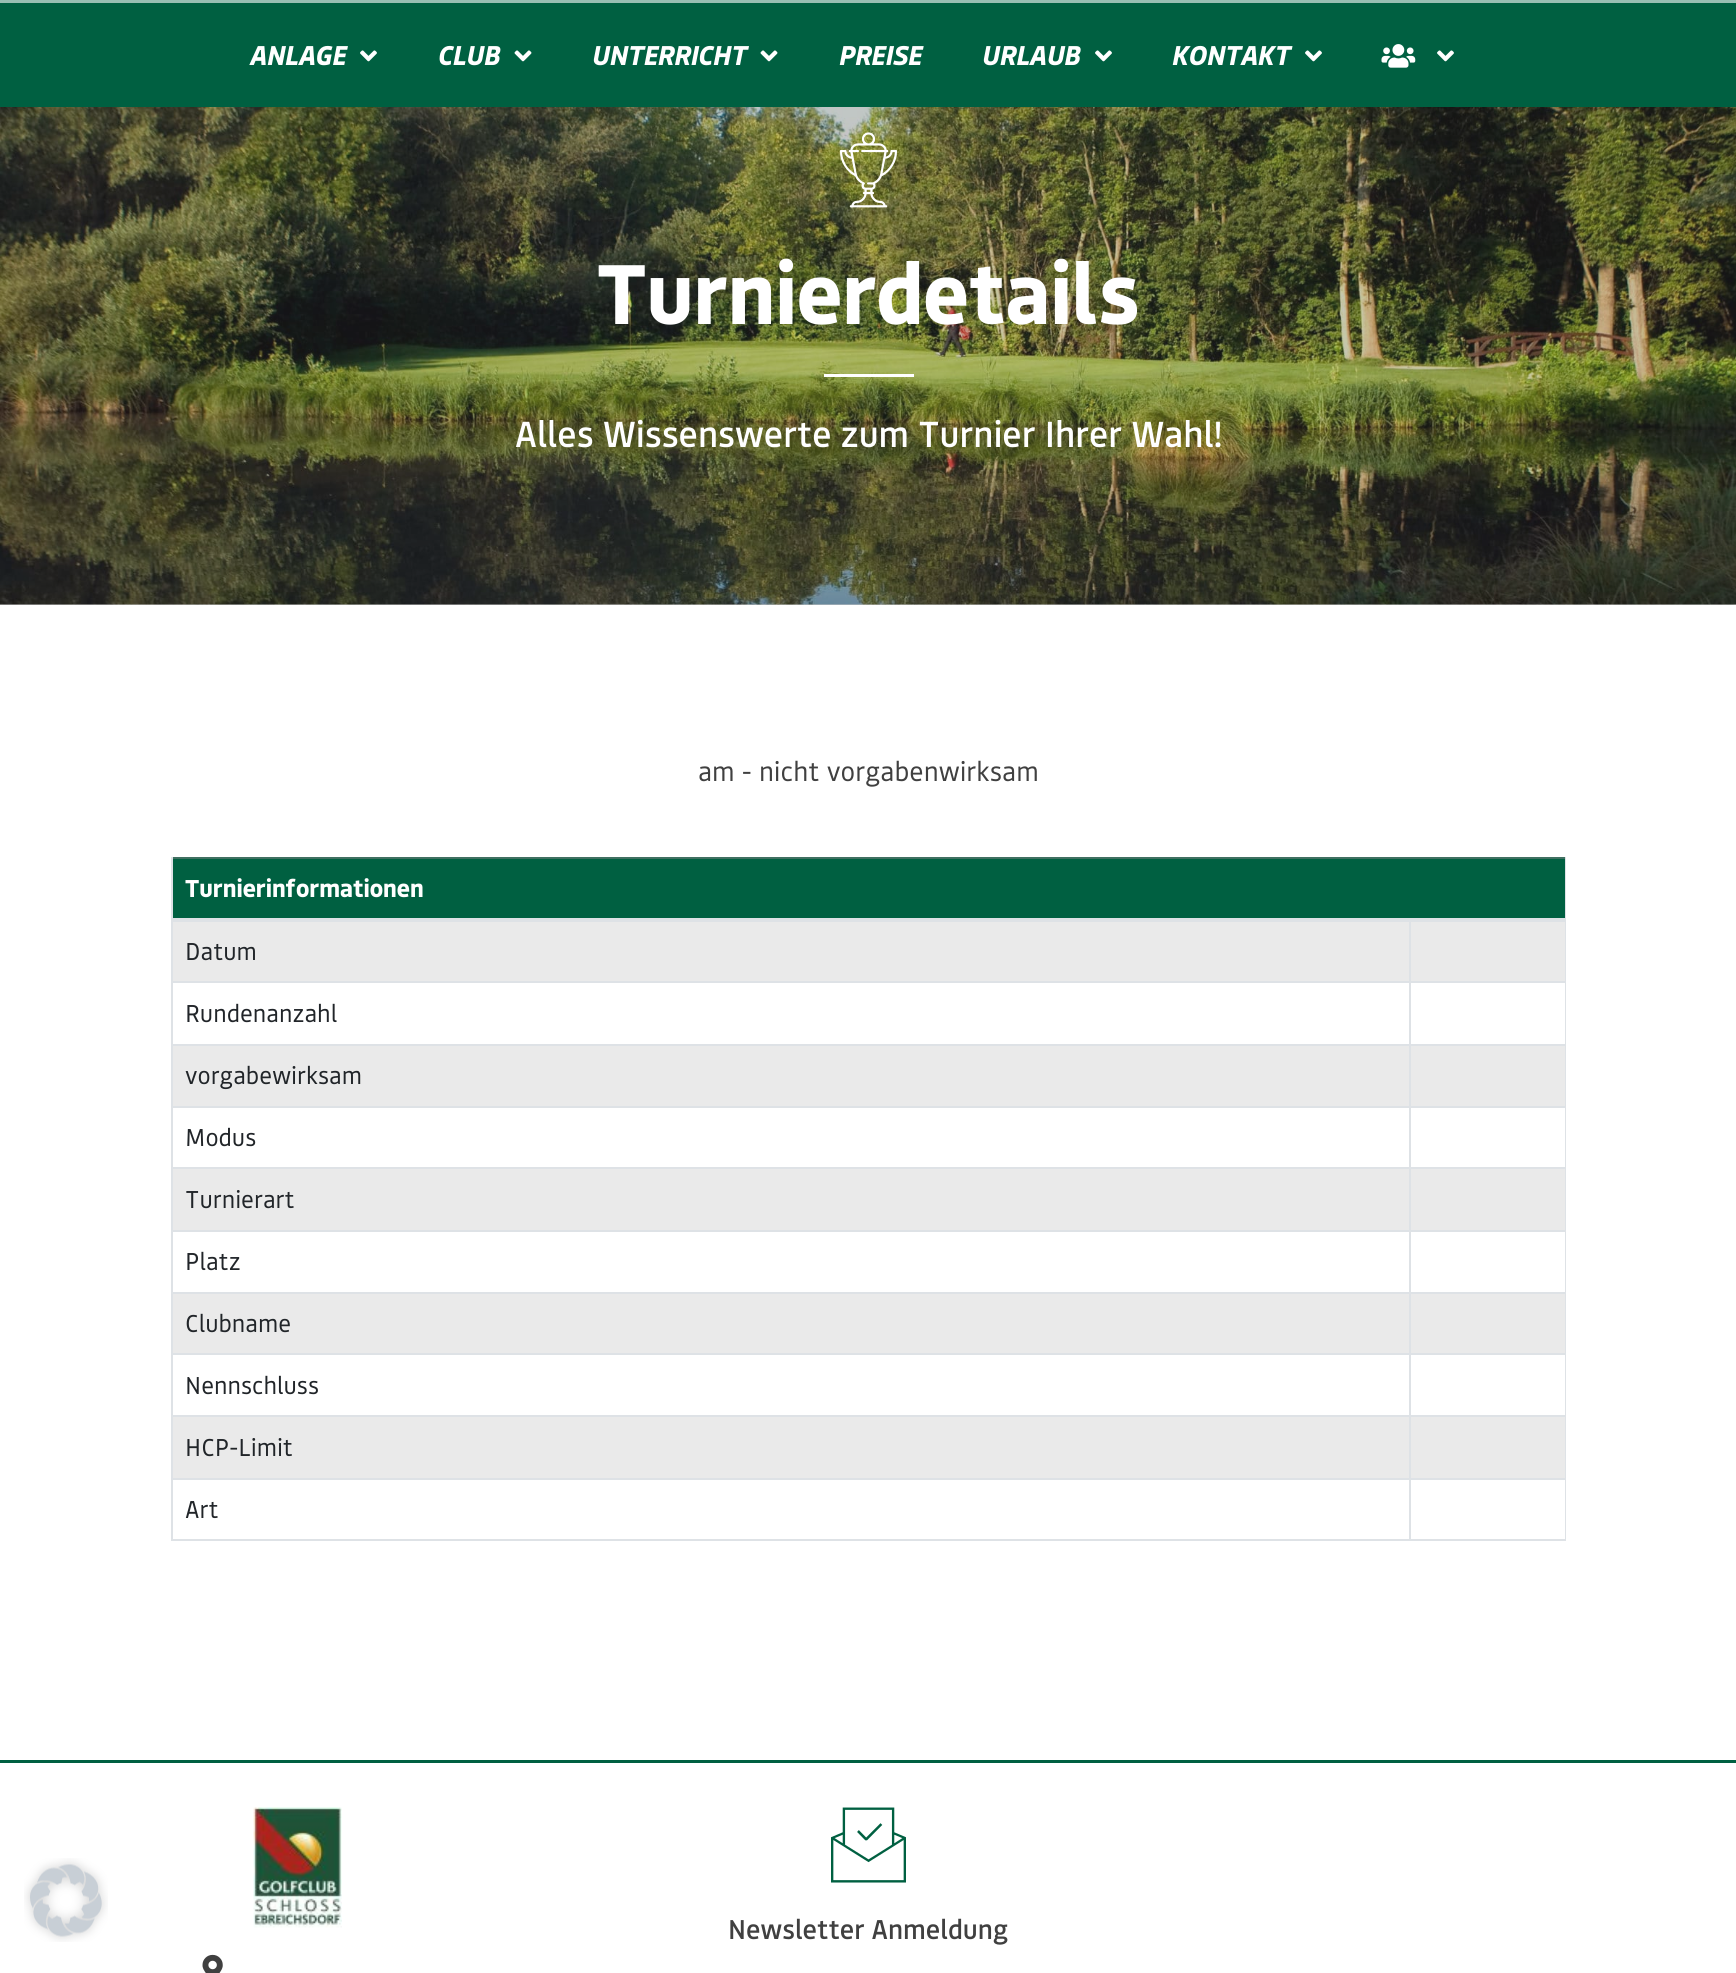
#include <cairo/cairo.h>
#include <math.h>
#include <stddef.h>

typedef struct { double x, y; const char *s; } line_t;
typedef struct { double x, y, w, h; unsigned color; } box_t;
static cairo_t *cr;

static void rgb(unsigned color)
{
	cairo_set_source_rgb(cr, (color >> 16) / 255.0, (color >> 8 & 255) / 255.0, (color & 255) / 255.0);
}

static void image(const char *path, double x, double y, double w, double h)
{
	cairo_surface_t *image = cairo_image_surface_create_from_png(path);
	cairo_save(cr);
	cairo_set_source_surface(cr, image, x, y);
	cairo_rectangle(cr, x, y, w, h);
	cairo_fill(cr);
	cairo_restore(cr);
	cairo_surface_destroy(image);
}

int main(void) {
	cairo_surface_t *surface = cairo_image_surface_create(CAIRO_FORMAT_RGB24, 1736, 1973);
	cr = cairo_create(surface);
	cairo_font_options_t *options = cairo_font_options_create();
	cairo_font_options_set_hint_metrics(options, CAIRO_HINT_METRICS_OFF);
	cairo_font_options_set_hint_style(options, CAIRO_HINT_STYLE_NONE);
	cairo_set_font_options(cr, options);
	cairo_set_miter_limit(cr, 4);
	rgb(0xffffff);
	cairo_paint(cr);
	{
		static const box_t items[] = {
			{0, 604, 1736, 1, 0xc7c7c7},
			{0, 3, 1736, 104, 0x006041},
			{0, 0, 1736, 3, 0x99bfb3},
		};
		for (size_t i = 0; i < sizeof items / sizeof *items; i++) {
			rgb(items[i].color);
			cairo_rectangle(cr, items[i].x, items[i].y, items[i].w, items[i].h);
			cairo_fill(cr);
		}
	}
	image("img/1.png", 360, 50, 17, 12);
	image("img/2.png", 514, 50, 18, 12);
	image("img/2.png", 760, 50, 18, 12);
	image("img/1.png", 1095, 50, 17, 12);
	image("img/1.png", 1305, 50, 17, 12);
	image("img/3.png", 1381, 44, 35, 24);
	image("img/1.png", 1437, 50, 17, 12);
	image("img/4.png", 0, 107, 1736, 498);
	image("img/5.png", 839, 132, 59, 76);
	{
		static const box_t items[] = {
			{824, 374, 90, 3, 0xffffff},
			{173, 859, 1392, 59, 0x006041},
			{173, 857, 1393, 2, 0x407061},
			{1409, 921, 157, 1, 0xdee2e6},
			{1409, 981, 157, 2, 0xdee2e6},
			{1409, 1044, 157, 2, 0xdee2e6},
			{1409, 1106, 157, 2, 0xdee2e6},
			{1409, 1167, 157, 2, 0xdee2e6},
			{1409, 1230, 157, 2, 0xdee2e6},
			{1409, 1292, 157, 2, 0xdee2e6},
			{1409, 1353, 157, 2, 0xdee2e6},
			{1409, 1415, 157, 2, 0xdee2e6},
			{1409, 1478, 157, 2, 0xdee2e6},
			{1565, 1478, 1, 63, 0xdee2e6},
			{1409, 1539, 157, 2, 0xdee2e6},
			{1409, 1478, 2, 63, 0xdee2e6},
			{171, 1478, 1239, 2, 0xdee2e6},
			{1409, 1415, 2, 64, 0xdee2e6},
			{171, 1415, 1239, 2, 0xdee2e6},
			{1409, 1353, 2, 63, 0xdee2e6},
			{171, 1353, 1239, 2, 0xdee2e6},
			{1409, 1292, 2, 63, 0xdee2e6},
			{171, 1292, 1239, 2, 0xdee2e6},
			{1409, 1230, 2, 63, 0xdee2e6},
			{171, 1230, 1239, 2, 0xdee2e6},
			{1409, 1167, 2, 65, 0xdee2e6},
			{171, 1167, 1239, 2, 0xdee2e6},
			{1409, 1106, 2, 63, 0xdee2e6},
			{171, 1106, 1239, 2, 0xdee2e6},
			{1409, 1044, 2, 63, 0xdee2e6},
			{171, 1044, 1239, 2, 0xdee2e6},
			{1409, 981, 2, 65, 0xdee2e6},
			{171, 981, 1239, 2, 0xdee2e6},
			{1409, 920, 2, 63, 0xdee2e6},
			{171, 921, 1239, 1, 0xdee2e6},
			{171, 1539, 1239, 2, 0xdee2e6},
			{171, 1478, 2, 63, 0xdee2e6},
			{171, 1415, 2, 64, 0xdee2e6},
			{171, 1353, 2, 63, 0xdee2e6},
			{171, 1292, 2, 63, 0xdee2e6},
			{171, 1230, 2, 63, 0xdee2e6},
			{171, 1167, 2, 65, 0xdee2e6},
			{171, 1106, 2, 63, 0xdee2e6},
			{171, 1044, 2, 63, 0xdee2e6},
			{171, 981, 2, 65, 0xdee2e6},
			{171, 857, 2, 126, 0xdee2e6},
			{1565, 1415, 1, 64, 0xdee2e6},
			{1565, 1353, 1, 63, 0xdee2e6},
			{1565, 1292, 1, 63, 0xdee2e6},
			{1565, 1230, 1, 63, 0xdee2e6},
			{1565, 1167, 1, 65, 0xdee2e6},
			{1565, 1106, 1, 63, 0xdee2e6},
			{1565, 1044, 1, 63, 0xdee2e6},
			{1565, 981, 1, 65, 0xdee2e6},
			{1565, 857, 1, 126, 0xdee2e6},
			{171, 918, 1395, 3, 0xdee2e6},
			{173, 922, 1236, 59, 0xeaeaea},
			{1411, 922, 154, 59, 0xeaeaea},
			{173, 1046, 1236, 60, 0xeaeaea},
			{1411, 1046, 154, 60, 0xeaeaea},
			{173, 1169, 1236, 61, 0xeaeaea},
			{1411, 1169, 154, 61, 0xeaeaea},
			{173, 1294, 1236, 59, 0xeaeaea},
			{1411, 1294, 154, 59, 0xeaeaea},
			{173, 1417, 1236, 61, 0xeaeaea},
			{1411, 1417, 154, 61, 0xeaeaea},
		};
		for (size_t i = 0; i < sizeof items / sizeof *items; i++) {
			rgb(items[i].color);
			cairo_rectangle(cr, items[i].x, items[i].y, items[i].w, items[i].h);
			cairo_fill(cr);
		}
	}
	image("img/6.png", 24, 1858, 84, 84);
	rgb(0x006041);
	cairo_rectangle(cr, 0, 1760, 1736, 3);
	cairo_fill(cr);
	image("img/7.png", 253, 1807, 89, 121);
	image("img/8.png", 202, 1954, 21, 19);
	image("img/9.png", 831, 1807, 75, 76);
	cairo_select_font_face(cr, "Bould", CAIRO_FONT_SLANT_ITALIC, CAIRO_FONT_WEIGHT_BOLD);
	cairo_set_font_size(cr, 27);
	rgb(0xffffff);
	{
		static const line_t items[] = {
			{249, 65, "ANLAGE"},
			{437, 65, "CLUB"},
			{591, 65, "UNTERRICHT"},
			{838, 65, "PREISE"},
			{981, 65, "URLAUB"},
			{1171, 65, "KONTAKT"},
		};
		for (size_t i = 0; i < sizeof items / sizeof *items; i++) {
			cairo_move_to(cr, items[i].x, items[i].y);
			cairo_show_text(cr, items[i].s);
		}
	}
	cairo_select_font_face(cr, "Bould", CAIRO_FONT_SLANT_NORMAL, CAIRO_FONT_WEIGHT_BOLD);
	cairo_set_font_size(cr, 84);
	cairo_move_to(cr, 597, 324);
	cairo_show_text(cr, "Turnierdetails");
	cairo_select_font_face(cr, "Bould Medium", CAIRO_FONT_SLANT_NORMAL, CAIRO_FONT_WEIGHT_NORMAL);
	cairo_set_font_size(cr, 36);
	cairo_move_to(cr, 515, 447);
	cairo_show_text(cr, "Alles Wissenswerte zum Turnier Ihrer Wahl!");
	cairo_select_font_face(cr, "Bould", CAIRO_FONT_SLANT_NORMAL, CAIRO_FONT_WEIGHT_NORMAL);
	cairo_set_font_size(cr, 27);
	rgb(0x404040);
	cairo_move_to(cr, 698, 781);
	cairo_show_text(cr, "am - nicht vorgabenwirksam");
	cairo_select_font_face(cr, "Bould", CAIRO_FONT_SLANT_NORMAL, CAIRO_FONT_WEIGHT_BOLD);
	cairo_set_font_size(cr, 24.25);
	rgb(0xffffff);
	cairo_move_to(cr, 185, 897);
	cairo_show_text(cr, "Turnierinformationen");
	cairo_select_font_face(cr, "Bould", CAIRO_FONT_SLANT_NORMAL, CAIRO_FONT_WEIGHT_NORMAL);
	rgb(0x212529);
	{
		static const line_t items[] = {
			{185, 960, "Datum"},
			{185, 1022, "Rundenanzahl"},
			{185, 1084, "vorgabewirksam"},
			{185, 1146, "Modus"},
			{185, 1208, "Turnierart"},
			{185, 1270, "Platz"},
			{185, 1332, "Clubname"},
			{185, 1394, "Nennschluss"},
			{185, 1456, "HCP-Limit"},
			{185, 1518, "Art"},
		};
		for (size_t i = 0; i < sizeof items / sizeof *items; i++) {
			cairo_move_to(cr, items[i].x, items[i].y);
			cairo_show_text(cr, items[i].s);
		}
	}
	cairo_select_font_face(cr, "Bould Medium", CAIRO_FONT_SLANT_NORMAL, CAIRO_FONT_WEIGHT_NORMAL);
	cairo_set_font_size(cr, 27);
	rgb(0x404040);
	cairo_move_to(cr, 728, 1939);
	cairo_show_text(cr, "Newsletter Anmeldung");
	cairo_surface_write_to_png(surface, "page.png");
	cairo_font_options_destroy(options);
	cairo_destroy(cr);
	cairo_surface_destroy(surface);
	return 0;
}
